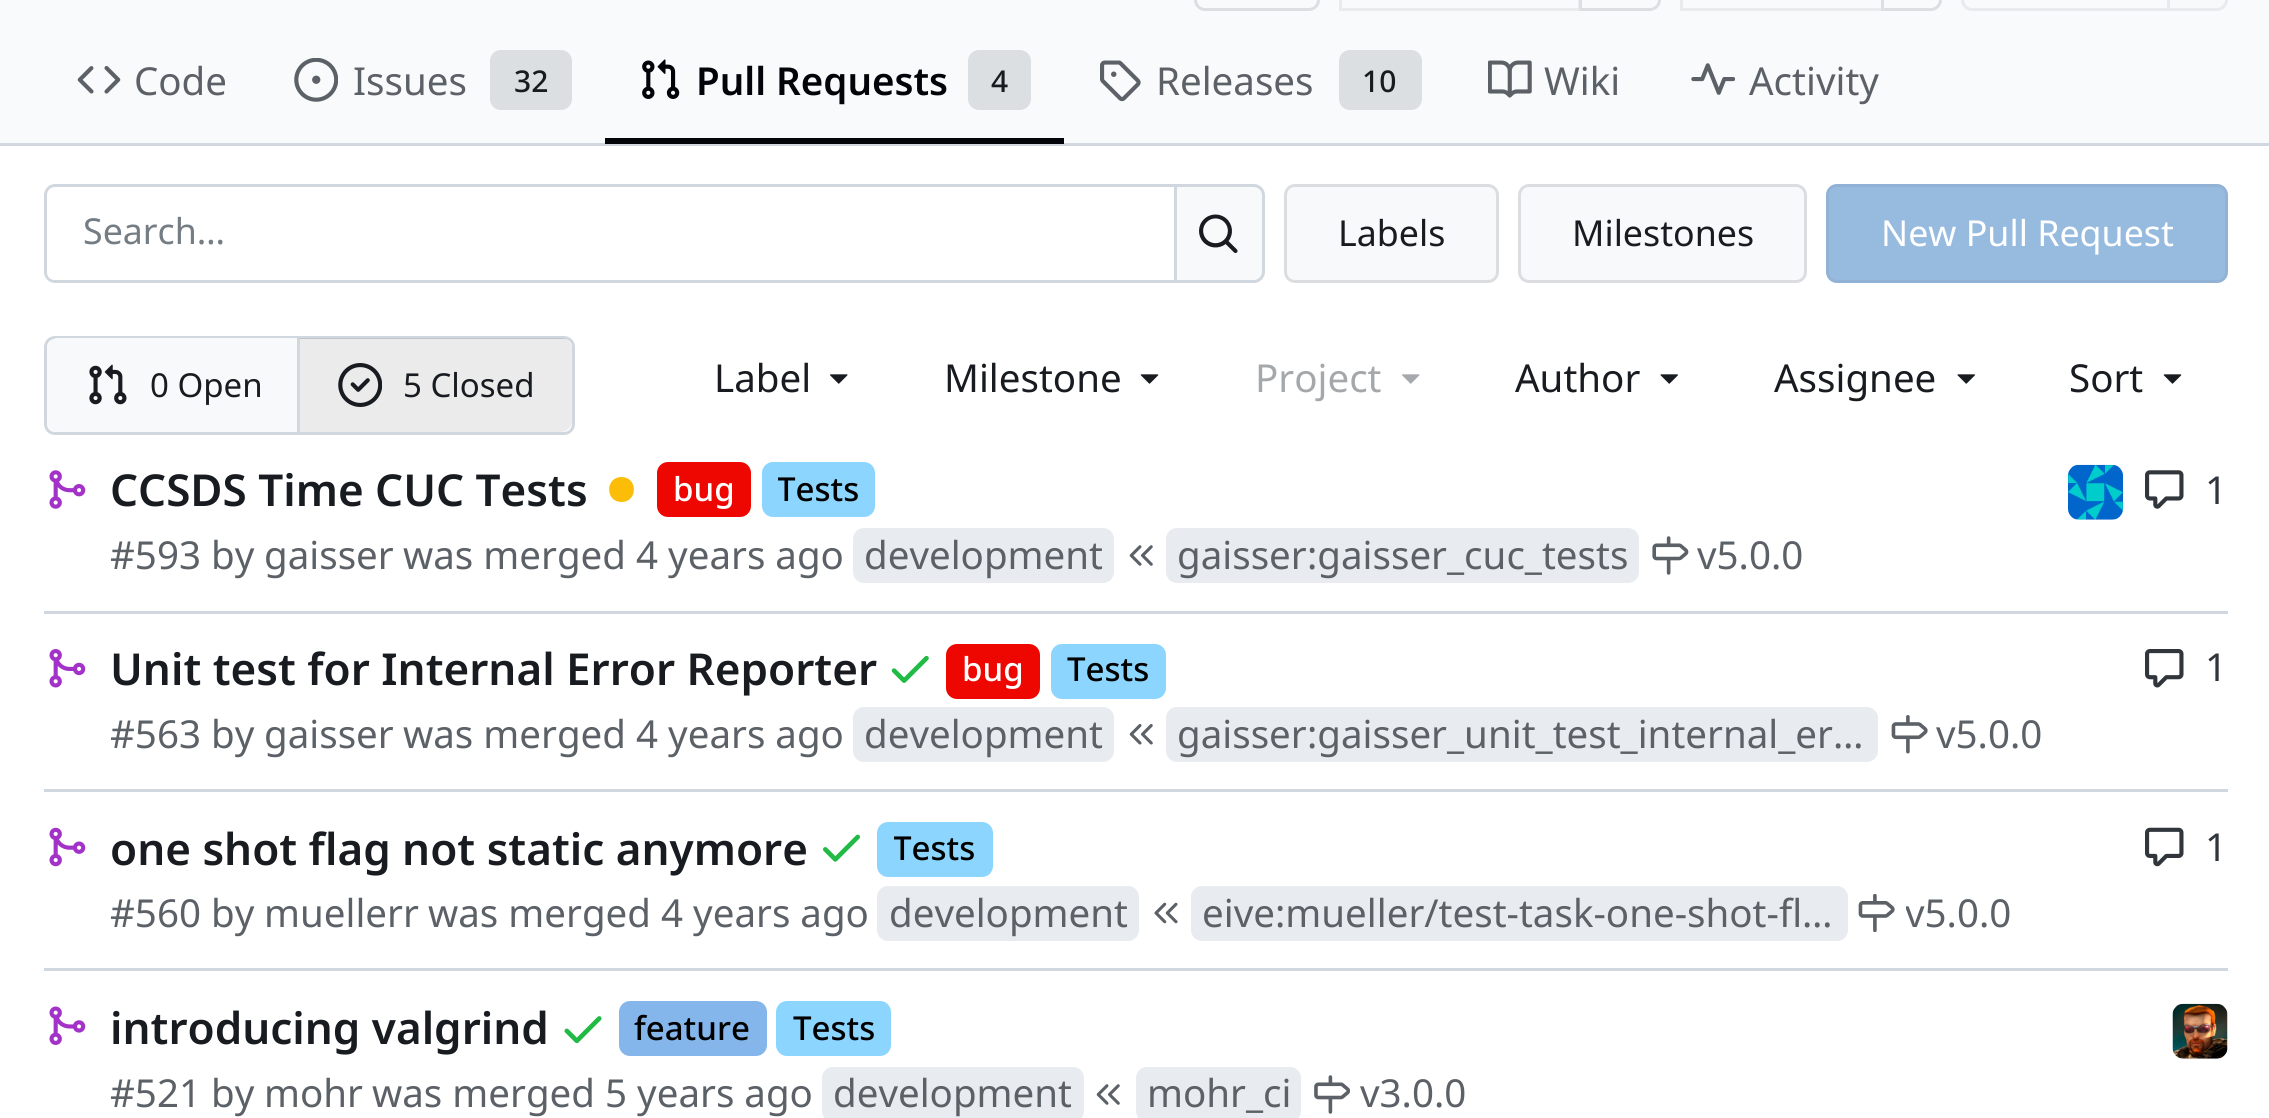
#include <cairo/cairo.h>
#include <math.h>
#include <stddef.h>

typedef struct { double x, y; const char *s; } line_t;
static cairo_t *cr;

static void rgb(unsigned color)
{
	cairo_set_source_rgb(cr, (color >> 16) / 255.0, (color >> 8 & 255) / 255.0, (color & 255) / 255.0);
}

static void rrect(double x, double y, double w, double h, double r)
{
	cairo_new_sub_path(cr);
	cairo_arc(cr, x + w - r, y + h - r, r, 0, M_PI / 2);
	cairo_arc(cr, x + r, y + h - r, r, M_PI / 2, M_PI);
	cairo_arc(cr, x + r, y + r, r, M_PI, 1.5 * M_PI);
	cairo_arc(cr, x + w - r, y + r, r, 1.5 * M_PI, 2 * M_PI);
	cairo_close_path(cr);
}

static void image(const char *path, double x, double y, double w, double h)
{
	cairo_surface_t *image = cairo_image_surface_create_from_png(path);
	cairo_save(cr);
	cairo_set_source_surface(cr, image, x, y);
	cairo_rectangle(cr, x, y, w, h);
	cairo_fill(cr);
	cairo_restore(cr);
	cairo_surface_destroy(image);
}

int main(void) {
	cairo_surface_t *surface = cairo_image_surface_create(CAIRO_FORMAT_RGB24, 2269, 1118);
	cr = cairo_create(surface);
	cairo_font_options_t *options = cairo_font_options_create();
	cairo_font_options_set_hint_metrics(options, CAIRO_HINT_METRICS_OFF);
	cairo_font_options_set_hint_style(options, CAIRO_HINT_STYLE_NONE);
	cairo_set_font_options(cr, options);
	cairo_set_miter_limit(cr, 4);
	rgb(0xffffff);
	cairo_paint(cr);
	rgb(0xf9fafb);
	cairo_rectangle(cr, 0, 0, 2269, 143);
	cairo_fill(cr);
	rrect(1195.5, -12.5, 123, 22, 9.5);
	rgb(0xdddee1);
	cairo_set_line_width(cr, 3);
	cairo_stroke(cr);
	cairo_new_path(cr);
	cairo_move_to(cr, 1580.5, -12.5);
	cairo_line_to(cr, 1650, -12.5);
	cairo_curve_to(cr, 1655, -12.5, 1659.5, -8, 1659.5, -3);
	cairo_line_to(cr, 1659.5, 0);
	cairo_curve_to(cr, 1659.5, 5, 1655, 9.5, 1650, 9.5);
	cairo_line_to(cr, 1580.5, 9.5);
	cairo_close_path(cr);
	cairo_stroke(cr);
	cairo_set_source_rgba(cr, 0.973, 0.976, 0.984, 0.55);
	cairo_new_path(cr);
	cairo_move_to(cr, 1350, -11);
	cairo_line_to(cr, 1581, -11);
	cairo_line_to(cr, 1581, 11);
	cairo_line_to(cr, 1350, 11);
	cairo_curve_to(cr, 1344, 11, 1339, 6, 1339, 0);
	cairo_curve_to(cr, 1339, -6, 1344, -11, 1350, -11);
	cairo_close_path(cr);
	cairo_fill(cr);
	cairo_rectangle(cr, 1340.5, -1.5, 239, 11);
	cairo_set_source_rgba(cr, 0, 0, 0.09, 0.06);
	cairo_stroke(cr);
	cairo_new_path(cr);
	cairo_move_to(cr, 1882.5, -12.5);
	cairo_line_to(cr, 1931, -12.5);
	cairo_curve_to(cr, 1936, -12.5, 1940.5, -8, 1940.5, -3);
	cairo_line_to(cr, 1940.5, 0);
	cairo_curve_to(cr, 1940.5, 5, 1936, 9.5, 1931, 9.5);
	cairo_line_to(cr, 1882.5, 9.5);
	cairo_close_path(cr);
	rgb(0xdddee1);
	cairo_stroke(cr);
	cairo_set_source_rgba(cr, 0.973, 0.976, 0.984, 0.55);
	cairo_new_path(cr);
	cairo_move_to(cr, 1691, -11);
	cairo_line_to(cr, 1884, -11);
	cairo_line_to(cr, 1884, 11);
	cairo_line_to(cr, 1691, 11);
	cairo_curve_to(cr, 1685, 11, 1680, 6, 1680, 0);
	cairo_curve_to(cr, 1680, -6, 1685, -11, 1691, -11);
	cairo_close_path(cr);
	cairo_fill(cr);
	cairo_rectangle(cr, 1681.5, -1.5, 201, 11);
	cairo_set_source_rgba(cr, 0, 0, 0.09, 0.06);
	cairo_stroke(cr);
	cairo_new_path(cr);
	cairo_move_to(cr, 1972, -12.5);
	cairo_line_to(cr, 2168.5, -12.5);
	cairo_line_to(cr, 2168.5, 9.5);
	cairo_line_to(cr, 1972, 9.5);
	cairo_curve_to(cr, 1967, 9.5, 1962.5, 5, 1962.5, 0);
	cairo_line_to(cr, 1962.5, -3);
	cairo_curve_to(cr, 1962.5, -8, 1967, -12.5, 1972, -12.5);
	cairo_close_path(cr);
	rgb(0xe9eaed);
	cairo_stroke(cr);
	rgb(0xf8f9fb);
	cairo_new_path(cr);
	cairo_move_to(cr, 2168.5, -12.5);
	cairo_line_to(cr, 2217, -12.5);
	cairo_curve_to(cr, 2222, -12.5, 2226.5, -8, 2226.5, -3);
	cairo_line_to(cr, 2226.5, 0);
	cairo_curve_to(cr, 2226.5, 5, 2222, 9.5, 2217, 9.5);
	cairo_line_to(cr, 2168.5, 9.5);
	cairo_close_path(cr);
	cairo_fill_preserve(cr);
	rgb(0xe9eaed);
	cairo_stroke(cr);
	image("img/1.png", 77, 66, 44, 28);
	image("img/2.png", 294, 58, 44, 44);
	rgb(0xdbdfe2);
	rrect(490, 50, 82, 60, 11);
	cairo_fill(cr);
	rgb(0xd0d7de);
	cairo_rectangle(cr, 0, 143, 2269, 3);
	cairo_fill(cr);
	rgb(0x01050a);
	cairo_rectangle(cr, 605, 138, 459, 6);
	cairo_fill(cr);
	image("img/3.png", 642, 59, 38, 40);
	rgb(0xdbdfe2);
	rrect(968, 50, 63, 60, 11);
	cairo_fill(cr);
	image("img/4.png", 1100, 60, 41, 42);
	rrect(1339, 50, 83, 60, 11);
	cairo_fill(cr);
	image("img/5.png", 1488, 60, 44, 38);
	image("img/6.png", 1691, 63, 44, 32);
	rgb(0xd0d7de);
	cairo_set_fill_rule(cr, CAIRO_FILL_RULE_EVEN_ODD);
	cairo_new_path(cr);
	cairo_move_to(cr, 55, 184);
	cairo_line_to(cr, 1174, 184);
	cairo_line_to(cr, 1174, 283);
	cairo_line_to(cr, 55, 283);
	cairo_curve_to(cr, 49, 283, 44, 278, 44, 272);
	cairo_line_to(cr, 44, 195);
	cairo_curve_to(cr, 44, 189, 49, 184, 55, 184);
	cairo_close_path(cr);
	cairo_move_to(cr, 55, 187);
	cairo_line_to(cr, 1174, 187);
	cairo_line_to(cr, 1174, 280);
	cairo_line_to(cr, 55, 280);
	cairo_curve_to(cr, 50, 280, 47, 277, 47, 272);
	cairo_line_to(cr, 47, 195);
	cairo_curve_to(cr, 47, 191, 50, 187, 55, 187);
	cairo_close_path(cr);
	cairo_fill(cr);
	rgb(0xf8f9fb);
	cairo_new_path(cr);
	cairo_move_to(cr, 1175.5, 185.5);
	cairo_line_to(cr, 1254, 185.5);
	cairo_curve_to(cr, 1259, 185.5, 1263.5, 190, 1263.5, 195);
	cairo_line_to(cr, 1263.5, 272);
	cairo_curve_to(cr, 1263.5, 277, 1259, 281.5, 1254, 281.5);
	cairo_line_to(cr, 1175.5, 281.5);
	cairo_close_path(cr);
	cairo_fill_preserve(cr);
	rgb(0xd0d7de);
	cairo_stroke(cr);
	image("img/7.png", 1199, 214, 39, 39);
	rgb(0xf8f9fb);
	rrect(1285.5, 185.5, 212, 96, 9.5);
	cairo_fill_preserve(cr);
	rgb(0xdcdde1);
	cairo_stroke(cr);
	rgb(0xf8f9fb);
	rrect(1519.5, 185.5, 286, 96, 9.5);
	cairo_fill_preserve(cr);
	rgb(0xdcdde1);
	cairo_stroke(cr);
	rgb(0x97bbdf);
	rrect(1826, 184, 402, 99, 11);
	cairo_fill(cr);
	rrect(1827.5, 185.5, 399, 96, 9.5);
	cairo_set_source_rgba(cr, 0.451, 0.451, 0.498, 0.11);
	cairo_stroke(cr);
	rrect(45.5, 337.5, 528, 96, 9.5);
	rgb(0xd0d7de);
	cairo_stroke(cr);
	rgb(0xf8f9fb);
	cairo_new_path(cr);
	cairo_move_to(cr, 58, 338);
	cairo_line_to(cr, 300, 338);
	cairo_line_to(cr, 300, 432);
	cairo_line_to(cr, 58, 432);
	cairo_curve_to(cr, 52, 432, 47, 427, 47, 421);
	cairo_line_to(cr, 47, 349);
	cairo_curve_to(cr, 47, 343, 52, 338, 58, 338);
	cairo_close_path(cr);
	cairo_fill(cr);
	image("img/8.png", 89, 364, 38, 41);
	rgb(0xd0d7de);
	cairo_rectangle(cr, 297, 338, 3, 94);
	cairo_fill(cr);
	cairo_set_source_rgba(cr, 0, 0, 0.09, 0.08);
	cairo_new_path(cr);
	cairo_move_to(cr, 300, 338);
	cairo_line_to(cr, 561, 338);
	cairo_curve_to(cr, 567, 338, 572, 343, 572, 349);
	cairo_line_to(cr, 572, 421);
	cairo_curve_to(cr, 572, 427, 567, 432, 561, 432);
	cairo_line_to(cr, 300, 432);
	cairo_close_path(cr);
	cairo_fill(cr);
	image("img/9.png", 338, 363, 44, 44);
	image("img/10.png", 830, 374, 18, 10);
	image("img/11.png", 1140, 374, 19, 10);
	image("img/12.png", 1402, 374, 18, 10);
	image("img/13.png", 1660, 374, 18, 10);
	image("img/13.png", 1957, 374, 18, 10);
	image("img/11.png", 2163, 374, 19, 10);
	image("img/14.png", 49, 470, 37, 39);
	rgb(0xfbbd08);
	cairo_set_fill_rule(cr, CAIRO_FILL_RULE_WINDING);
	cairo_new_path(cr);
	cairo_move_to(cr, 621.5, 477);
	cairo_curve_to(cr, 638, 477, 638, 502, 621.5, 502);
	cairo_curve_to(cr, 605, 502, 605, 477, 621.5, 477);
	cairo_fill(cr);
	rgb(0xee0701);
	rrect(657, 462, 94, 55, 11);
	cairo_fill(cr);
	rgb(0x8cd5ff);
	rrect(762, 462, 113, 55, 11);
	cairo_fill(cr);
	rgb(0xe8ebef);
	rrect(853, 528, 261, 55, 11);
	cairo_fill(cr);
	image("img/15.png", 1129, 545, 24, 21);
	rrect(1166, 528, 473, 55, 11);
	cairo_fill(cr);
	image("img/16.png", 1652, 536, 37, 39);
	image("img/17.png", 2068, 464, 55, 56);
	image("img/18.png", 2145, 470, 39, 39);
	rgb(0xd0d7de);
	cairo_rectangle(cr, 44, 611, 2184, 3);
	cairo_fill(cr);
	image("img/19.png", 49, 649, 37, 39);
	image("img/20.png", 891, 655, 38, 28);
	rgb(0xee0701);
	rrect(946, 644, 94, 55, 11);
	cairo_fill(cr);
	rgb(0x8cd5ff);
	rrect(1051, 644, 115, 55, 11);
	cairo_fill(cr);
	rgb(0xe8ebef);
	rrect(853, 707, 261, 55, 11);
	cairo_fill(cr);
	image("img/21.png", 1129, 724, 24, 21);
	rrect(1166, 707, 712, 55, 11);
	cairo_fill(cr);
	image("img/22.png", 1891, 715, 37, 39);
	image("img/23.png", 2145, 649, 39, 39);
	rgb(0xd0d7de);
	cairo_rectangle(cr, 44, 789, 2184, 3);
	cairo_fill(cr);
	image("img/24.png", 49, 827, 37, 40);
	image("img/25.png", 823, 834, 37, 28);
	rgb(0x8cd5ff);
	rrect(877, 822, 116, 55, 11);
	cairo_fill(cr);
	rgb(0xe8ebef);
	rrect(877, 886, 262, 55, 11);
	cairo_fill(cr);
	image("img/26.png", 1154, 902, 24, 22);
	rrect(1191, 886, 657, 55, 11);
	cairo_fill(cr);
	image("img/27.png", 1858, 894, 37, 38);
	image("img/28.png", 2145, 827, 39, 40);
	rgb(0xd0d7de);
	cairo_rectangle(cr, 44, 968, 2184, 3);
	cairo_fill(cr);
	image("img/29.png", 49, 1006, 37, 39);
	image("img/30.png", 564, 1016, 38, 28);
	rgb(0x84b6eb);
	rrect(619, 1001, 148, 55, 11);
	cairo_fill(cr);
	rgb(0x8cd5ff);
	rrect(776, 1001, 115, 55, 11);
	cairo_fill(cr);
	rgb(0xe8ebef);
	rrect(822, 1067, 262, 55, 11);
	cairo_fill(cr);
	image("img/15.png", 1096, 1084, 24, 21);
	rrect(1136, 1067, 165, 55, 11);
	cairo_fill(cr);
	image("img/31.png", 1314, 1075, 36, 39);
	image("img/32.png", 2172, 1003, 56, 56);
	cairo_select_font_face(cr, "Noto Sans", CAIRO_FONT_SLANT_NORMAL, CAIRO_FONT_WEIGHT_NORMAL);
	cairo_set_font_size(cr, 38.5);
	rgb(0x5b6167);
	cairo_move_to(cr, 134, 95);
	cairo_show_text(cr, "Code");
	cairo_move_to(cr, 353, 95);
	cairo_show_text(cr, "Issues");
	cairo_select_font_face(cr, "Noto Sans Medium", CAIRO_FONT_SLANT_NORMAL, CAIRO_FONT_WEIGHT_NORMAL);
	cairo_set_font_size(cr, 30);
	rgb(0x181c21);
	cairo_move_to(cr, 514, 92);
	cairo_show_text(cr, "32");
	cairo_select_font_face(cr, "Noto Sans SemiBold", CAIRO_FONT_SLANT_NORMAL, CAIRO_FONT_WEIGHT_NORMAL);
	cairo_set_font_size(cr, 38.5);
	rgb(0x01050a);
	cairo_move_to(cr, 696, 95);
	cairo_show_text(cr, "Pull Requests");
	cairo_select_font_face(cr, "Noto Sans Medium", CAIRO_FONT_SLANT_NORMAL, CAIRO_FONT_WEIGHT_NORMAL);
	cairo_set_font_size(cr, 30);
	rgb(0x181c21);
	cairo_move_to(cr, 991, 92);
	cairo_show_text(cr, "4");
	cairo_select_font_face(cr, "Noto Sans", CAIRO_FONT_SLANT_NORMAL, CAIRO_FONT_WEIGHT_NORMAL);
	cairo_set_font_size(cr, 38.5);
	rgb(0x5b6167);
	cairo_move_to(cr, 1156, 95);
	cairo_show_text(cr, "Releases");
	cairo_select_font_face(cr, "Noto Sans Medium", CAIRO_FONT_SLANT_NORMAL, CAIRO_FONT_WEIGHT_NORMAL);
	cairo_set_font_size(cr, 30);
	rgb(0x181c21);
	cairo_move_to(cr, 1362, 92);
	cairo_show_text(cr, "10");
	cairo_select_font_face(cr, "Noto Sans", CAIRO_FONT_SLANT_NORMAL, CAIRO_FONT_WEIGHT_NORMAL);
	cairo_set_font_size(cr, 38.5);
	rgb(0x5b6167);
	cairo_move_to(cr, 1544, 95);
	cairo_show_text(cr, "Wiki");
	cairo_move_to(cr, 1749, 95);
	cairo_show_text(cr, "Activity");
	cairo_set_font_size(cr, 35.75);
	rgb(0x747c84);
	cairo_move_to(cr, 83, 244);
	cairo_show_text(cr, "Search…");
	rgb(0x181c21);
	cairo_move_to(cr, 1338, 246);
	cairo_show_text(cr, "Labels");
	cairo_move_to(cr, 1572, 246);
	cairo_show_text(cr, "Milestones");
	rgb(0xffffff);
	cairo_move_to(cr, 1881, 246);
	cairo_show_text(cr, "New Pull Request");
	cairo_set_font_size(cr, 33);
	rgb(0x181c21);
	cairo_move_to(cr, 150, 397);
	cairo_show_text(cr, "0 Open");
	cairo_move_to(cr, 403, 397);
	cairo_show_text(cr, "5 Closed");
	cairo_set_font_size(cr, 38.5);
	cairo_move_to(cr, 714, 392);
	cairo_show_text(cr, "Label");
	cairo_move_to(cr, 944, 392);
	cairo_show_text(cr, "Milestone");
	rgb(0xa5a8ab);
	cairo_move_to(cr, 1255, 392);
	cairo_show_text(cr, "Project");
	rgb(0x181c21);
	{
		static const line_t items[] = {
			{1515, 392, "Author"},
			{1774, 392, "Assignee"},
			{2069, 392, "Sort"},
		};
		for (size_t i = 0; i < sizeof items / sizeof *items; i++) {
			cairo_move_to(cr, items[i].x, items[i].y);
			cairo_show_text(cr, items[i].s);
		}
	}
	cairo_select_font_face(cr, "Noto Sans SemiBold", CAIRO_FONT_SLANT_NORMAL, CAIRO_FONT_WEIGHT_NORMAL);
	cairo_set_font_size(cr, 44);
	cairo_move_to(cr, 110, 506);
	cairo_show_text(cr, "CCSDS Time CUC Tests");
	cairo_select_font_face(cr, "Noto Sans Medium", CAIRO_FONT_SLANT_NORMAL, CAIRO_FONT_WEIGHT_NORMAL);
	cairo_set_font_size(cr, 33);
	rgb(0xffffff);
	cairo_move_to(cr, 673, 501);
	cairo_show_text(cr, "bug");
	cairo_save(cr);
	cairo_rectangle(cr, 778, 462, 80, 55);
	cairo_clip(cr);
	rgb(0x000000);
	cairo_move_to(cr, 777, 501);
	cairo_show_text(cr, "Tests");
	cairo_restore(cr);
	cairo_select_font_face(cr, "Noto Sans", CAIRO_FONT_SLANT_NORMAL, CAIRO_FONT_WEIGHT_NORMAL);
	cairo_set_font_size(cr, 38.5);
	rgb(0x5b6167);
	{
		static const line_t items[] = {
			{110, 569, "#593"},
			{211, 569, "by"},
			{264, 569, "gaisser"},
			{403, 569, "was merged"},
			{636, 569, "4 years ago"},
			{864, 569, "development"},
		};
		for (size_t i = 0; i < sizeof items / sizeof *items; i++) {
			cairo_move_to(cr, items[i].x, items[i].y);
			cairo_show_text(cr, items[i].s);
		}
	}
	cairo_save(cr);
	cairo_rectangle(cr, 1177, 528, 129, 55);
	cairo_clip(cr);
	cairo_move_to(cr, 1177, 569);
	cairo_show_text(cr, "gaisser");
	cairo_restore(cr);
	cairo_move_to(cr, 1307, 569);
	cairo_show_text(cr, ":gaisser_cuc_tests");
	cairo_move_to(cr, 1697, 569);
	cairo_show_text(cr, "v5.0.0");
	rgb(0x30363b);
	cairo_move_to(cr, 2205, 504);
	cairo_show_text(cr, "1");
	cairo_select_font_face(cr, "Noto Sans SemiBold", CAIRO_FONT_SLANT_NORMAL, CAIRO_FONT_WEIGHT_NORMAL);
	cairo_set_font_size(cr, 44);
	rgb(0x181c21);
	cairo_move_to(cr, 110, 685);
	cairo_show_text(cr, "Unit test for Internal Error Reporter");
	cairo_select_font_face(cr, "Noto Sans Medium", CAIRO_FONT_SLANT_NORMAL, CAIRO_FONT_WEIGHT_NORMAL);
	cairo_set_font_size(cr, 33);
	rgb(0xffffff);
	cairo_move_to(cr, 962, 681);
	cairo_show_text(cr, "bug");
	rgb(0x000000);
	cairo_move_to(cr, 1067, 681);
	cairo_show_text(cr, "Tests");
	cairo_select_font_face(cr, "Noto Sans", CAIRO_FONT_SLANT_NORMAL, CAIRO_FONT_WEIGHT_NORMAL);
	cairo_set_font_size(cr, 38.5);
	rgb(0x5b6167);
	{
		static const line_t items[] = {
			{110, 748, "#563"},
			{211, 748, "by"},
			{264, 748, "gaisser"},
			{403, 748, "was merged"},
			{636, 748, "4 years ago"},
			{864, 748, "development"},
		};
		for (size_t i = 0; i < sizeof items / sizeof *items; i++) {
			cairo_move_to(cr, items[i].x, items[i].y);
			cairo_show_text(cr, items[i].s);
		}
	}
	cairo_save(cr);
	cairo_rectangle(cr, 1177, 707, 129, 55);
	cairo_clip(cr);
	cairo_move_to(cr, 1177, 748);
	cairo_show_text(cr, "gaisser");
	cairo_restore(cr);
	cairo_move_to(cr, 1307, 748);
	cairo_show_text(cr, ":gaisser_unit_test_internal_er…");
	cairo_move_to(cr, 1936, 748);
	cairo_show_text(cr, "v5.0.0");
	rgb(0x30363b);
	cairo_move_to(cr, 2205, 681);
	cairo_show_text(cr, "1");
	cairo_select_font_face(cr, "Noto Sans SemiBold", CAIRO_FONT_SLANT_NORMAL, CAIRO_FONT_WEIGHT_NORMAL);
	cairo_set_font_size(cr, 44);
	rgb(0x181c21);
	cairo_move_to(cr, 110, 865);
	cairo_show_text(cr, "one shot flag not static anymore");
	cairo_save(cr);
	cairo_rectangle(cr, 894, 822, 82, 55);
	cairo_clip(cr);
	cairo_select_font_face(cr, "Noto Sans Medium", CAIRO_FONT_SLANT_NORMAL, CAIRO_FONT_WEIGHT_NORMAL);
	cairo_set_font_size(cr, 33);
	rgb(0x000000);
	cairo_move_to(cr, 893, 860);
	cairo_show_text(cr, "Tests");
	cairo_restore(cr);
	cairo_select_font_face(cr, "Noto Sans", CAIRO_FONT_SLANT_NORMAL, CAIRO_FONT_WEIGHT_NORMAL);
	cairo_set_font_size(cr, 38.5);
	rgb(0x5b6167);
	{
		static const line_t items[] = {
			{110, 927, "#560"},
			{211, 927, "by"},
			{264, 927, "muellerr"},
			{428, 927, "was merged"},
			{661, 927, "4 years ago"},
			{889, 927, "development"},
			{1202, 927, "eive"},
			{1275, 927, ":mueller/test-task-one-shot-fl…"},
		};
		for (size_t i = 0; i < sizeof items / sizeof *items; i++) {
			cairo_move_to(cr, items[i].x, items[i].y);
			cairo_show_text(cr, items[i].s);
		}
	}
	cairo_save(cr);
	cairo_rectangle(cr, 1906, 886, 104, 55);
	cairo_clip(cr);
	cairo_move_to(cr, 1905, 927);
	cairo_show_text(cr, "v5.0.0");
	cairo_restore(cr);
	rgb(0x30363b);
	cairo_move_to(cr, 2205, 861);
	cairo_show_text(cr, "1");
	cairo_select_font_face(cr, "Noto Sans SemiBold", CAIRO_FONT_SLANT_NORMAL, CAIRO_FONT_WEIGHT_NORMAL);
	cairo_set_font_size(cr, 44);
	rgb(0x181c21);
	cairo_move_to(cr, 110, 1044);
	cairo_show_text(cr, "introducing valgrind");
	cairo_select_font_face(cr, "Noto Sans Medium", CAIRO_FONT_SLANT_NORMAL, CAIRO_FONT_WEIGHT_NORMAL);
	cairo_set_font_size(cr, 33);
	rgb(0x000000);
	cairo_move_to(cr, 634, 1040);
	cairo_show_text(cr, "feature");
	cairo_move_to(cr, 793, 1040);
	cairo_show_text(cr, "Tests");
	cairo_select_font_face(cr, "Noto Sans", CAIRO_FONT_SLANT_NORMAL, CAIRO_FONT_WEIGHT_NORMAL);
	cairo_set_font_size(cr, 38.5);
	rgb(0x5b6167);
	{
		static const line_t items[] = {
			{110, 1107, "#521"},
			{211, 1107, "by"},
			{264, 1107, "mohr"},
			{372, 1107, "was merged"},
			{605, 1107, "5 years ago"},
			{833, 1107, "development"},
			{1147, 1107, "mohr_ci"},
			{1360, 1107, "v3.0.0"},
		};
		for (size_t i = 0; i < sizeof items / sizeof *items; i++) {
			cairo_move_to(cr, items[i].x, items[i].y);
			cairo_show_text(cr, items[i].s);
		}
	}
	cairo_surface_write_to_png(surface, "page.png");
	cairo_font_options_destroy(options);
	cairo_destroy(cr);
	cairo_surface_destroy(surface);
	return 0;
}
